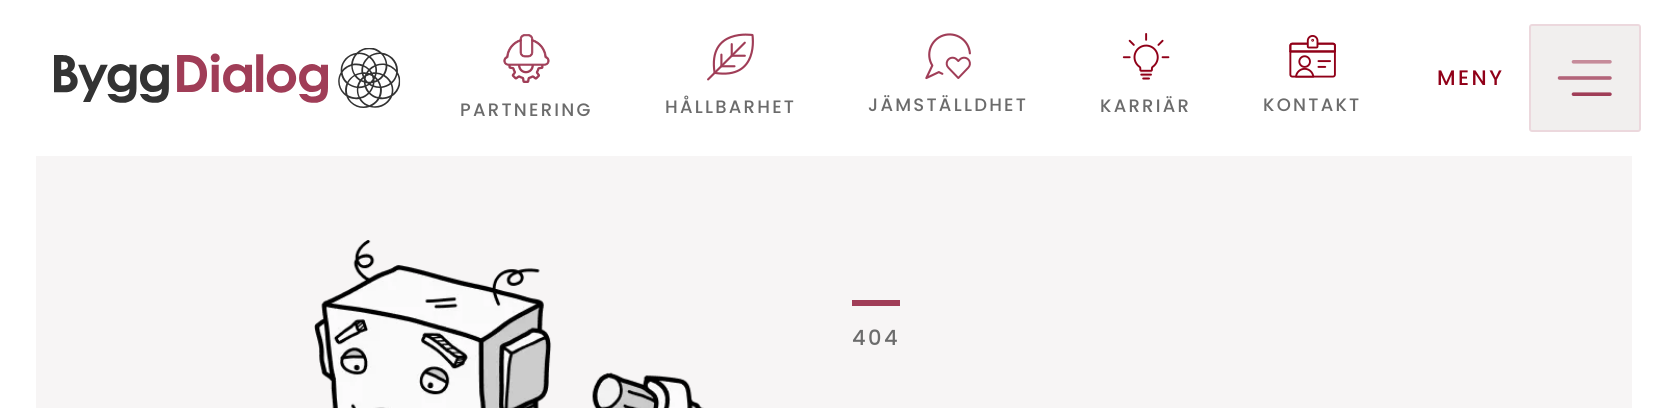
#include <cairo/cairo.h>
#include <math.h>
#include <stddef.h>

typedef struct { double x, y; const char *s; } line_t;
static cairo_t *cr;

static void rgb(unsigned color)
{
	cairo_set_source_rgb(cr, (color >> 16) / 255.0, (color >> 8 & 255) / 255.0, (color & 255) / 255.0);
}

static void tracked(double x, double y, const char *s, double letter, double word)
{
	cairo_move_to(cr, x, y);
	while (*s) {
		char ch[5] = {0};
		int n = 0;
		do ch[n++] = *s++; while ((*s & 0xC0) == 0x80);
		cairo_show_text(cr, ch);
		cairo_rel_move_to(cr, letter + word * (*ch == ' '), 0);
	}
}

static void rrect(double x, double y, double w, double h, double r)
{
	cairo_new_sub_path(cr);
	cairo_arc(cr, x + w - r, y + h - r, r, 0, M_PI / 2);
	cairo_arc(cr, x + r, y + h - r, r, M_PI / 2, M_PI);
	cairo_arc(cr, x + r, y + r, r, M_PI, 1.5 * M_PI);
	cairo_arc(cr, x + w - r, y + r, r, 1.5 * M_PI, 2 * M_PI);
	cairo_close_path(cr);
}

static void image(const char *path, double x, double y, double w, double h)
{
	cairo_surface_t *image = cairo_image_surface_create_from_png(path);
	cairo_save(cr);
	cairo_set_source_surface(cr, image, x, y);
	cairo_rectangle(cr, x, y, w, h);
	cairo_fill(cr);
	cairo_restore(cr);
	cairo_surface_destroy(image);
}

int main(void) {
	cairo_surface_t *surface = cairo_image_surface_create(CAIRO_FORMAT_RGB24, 1668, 408);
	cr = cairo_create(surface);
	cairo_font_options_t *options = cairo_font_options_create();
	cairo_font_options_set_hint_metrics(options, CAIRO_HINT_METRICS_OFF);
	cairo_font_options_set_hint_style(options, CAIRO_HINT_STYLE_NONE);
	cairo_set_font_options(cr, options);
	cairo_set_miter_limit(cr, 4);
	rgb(0xffffff);
	cairo_paint(cr);
	image("img/1.png", 54, 48, 347, 60);
	rgb(0xf1efee);
	rrect(1530, 25, 110, 106, 2);
	cairo_fill_preserve(cr);
	rgb(0xecd8dd);
	cairo_stroke(cr);
	image("img/2.png", 1557, 60, 55, 36);
	image("img/3.png", 503, 34, 47, 49);
	image("img/4.png", 707, 33, 47, 48);
	image("img/5.png", 925, 33, 46, 47);
	image("img/6.png", 1122, 33, 48, 47);
	image("img/7.png", 1289, 35, 47, 43);
	rgb(0xf7f5f5);
	cairo_rectangle(cr, 36, 156, 1596, 252);
	cairo_fill(cr);
	image("img/8.png", 314, 240, 390, 168);
	rgb(0xa03d57);
	cairo_rectangle(cr, 852, 300, 48, 6);
	cairo_fill(cr);
	cairo_select_font_face(cr, "Poppins Medium", CAIRO_FONT_SLANT_NORMAL, CAIRO_FONT_WEIGHT_NORMAL);
	cairo_set_font_size(cr, 21);
	rgb(0x900018);
	tracked(1437, 85, "MENY", 2.5, 0);
	cairo_set_font_size(cr, 18);
	rgb(0x6b6b6b);
	{
		static const line_t items[] = {
			{460, 116, "PARTNERING"},
			{665, 113, "HÅLLBARHET"},
			{868, 111, "JÄMSTÄLLDHET"},
			{1100, 112, "KARRIÄR"},
			{1263, 111, "KONTAKT"},
		};
		for (size_t i = 0; i < sizeof items / sizeof *items; i++) {
			tracked(items[i].x, items[i].y, items[i].s, 2.25, 0);
		}
	}
	cairo_set_font_size(cr, 21);
	tracked(852, 345, "404", 2.5, 0);
	cairo_surface_write_to_png(surface, "page.png");
	cairo_font_options_destroy(options);
	cairo_destroy(cr);
	cairo_surface_destroy(surface);
	return 0;
}
